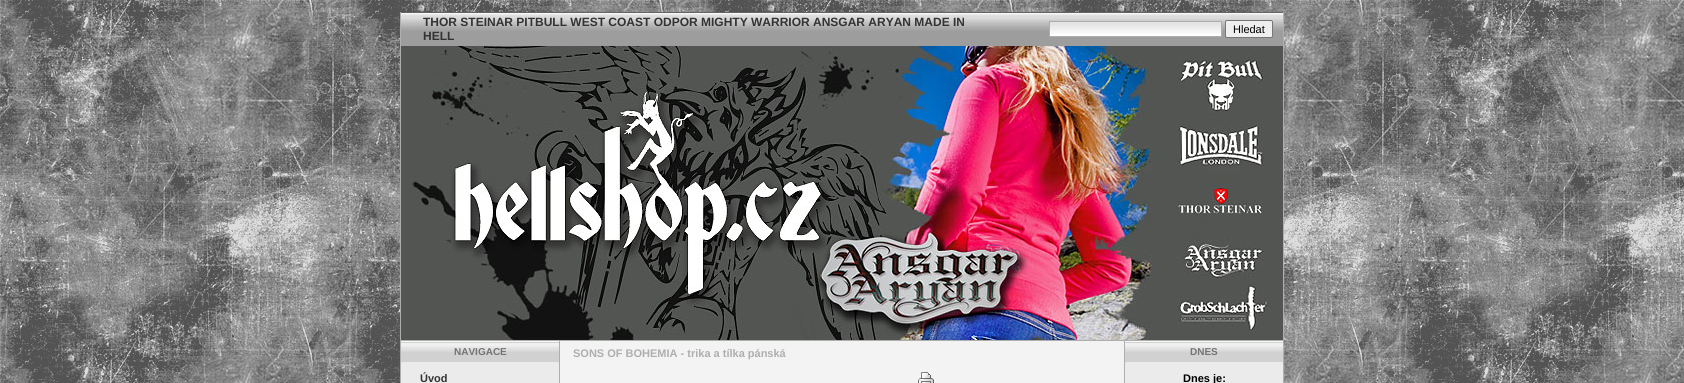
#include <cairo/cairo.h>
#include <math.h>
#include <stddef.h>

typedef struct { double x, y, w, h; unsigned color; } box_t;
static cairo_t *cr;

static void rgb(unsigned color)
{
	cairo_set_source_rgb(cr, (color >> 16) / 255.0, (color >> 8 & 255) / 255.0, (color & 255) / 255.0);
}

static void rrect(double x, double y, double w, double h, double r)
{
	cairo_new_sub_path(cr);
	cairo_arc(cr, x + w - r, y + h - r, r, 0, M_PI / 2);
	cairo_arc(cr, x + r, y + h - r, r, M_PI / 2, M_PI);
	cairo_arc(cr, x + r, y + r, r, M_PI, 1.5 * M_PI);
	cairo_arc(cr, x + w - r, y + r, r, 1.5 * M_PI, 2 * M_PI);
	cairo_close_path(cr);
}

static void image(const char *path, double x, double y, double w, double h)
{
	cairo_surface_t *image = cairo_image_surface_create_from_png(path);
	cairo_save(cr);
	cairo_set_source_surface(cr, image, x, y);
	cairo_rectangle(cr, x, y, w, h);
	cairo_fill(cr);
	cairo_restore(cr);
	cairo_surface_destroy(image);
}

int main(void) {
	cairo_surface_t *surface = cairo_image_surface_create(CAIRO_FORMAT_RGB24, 1684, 383);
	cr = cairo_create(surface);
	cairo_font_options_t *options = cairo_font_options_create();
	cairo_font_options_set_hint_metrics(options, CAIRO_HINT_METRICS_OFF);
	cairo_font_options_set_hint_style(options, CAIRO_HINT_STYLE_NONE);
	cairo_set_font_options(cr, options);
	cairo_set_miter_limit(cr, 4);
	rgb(0xffffff);
	cairo_paint(cr);
	image("img/1.png", 0, 0, 1684, 383);
	rgb(0xaeaeae);
	cairo_rectangle(cr, 400, 12, 1, 371);
	cairo_fill(cr);
	image("img/2.png", 401, 12, 595, 34);
	image("img/3.png", 996, 12, 287, 34);
	rgb(0xffffff);
	cairo_rectangle(cr, 1050, 34, 171, 2);
	cairo_fill(cr);
	image("img/4.png", 1050, 22, 171, 12);
	cairo_rectangle(cr, 1049.5, 21.5, 172, 15);
	rgb(0xaeaeae);
	cairo_set_line_width(cr, 1);
	cairo_stroke(cr);
	rgb(0xefefef);
	rrect(1225.5, 20.5, 47, 17, 1.5);
	cairo_fill_preserve(cr);
	rgb(0x767676);
	cairo_stroke(cr);
	image("img/5.png", 401, 46, 882, 294);
	{
		static const box_t items[] = {
			{401, 340, 882, 1, 0xaeaeae},
			{401, 362, 158, 21, 0xebebeb},
			{401, 352, 158, 10, 0xd1d1d1},
		};
		for (size_t i = 0; i < sizeof items / sizeof *items; i++) {
			rgb(items[i].color);
			cairo_rectangle(cr, items[i].x, items[i].y, items[i].w, items[i].h);
			cairo_fill(cr);
		}
	}
	image("img/6.png", 401, 341, 158, 11);
	rgb(0xaeaeae);
	cairo_rectangle(cr, 559, 341, 1, 42);
	cairo_fill(cr);
	rgb(0xf3f3f3);
	cairo_rectangle(cr, 560, 341, 564, 42);
	cairo_fill(cr);
	image("img/7.png", 918, 372, 16, 11);
	{
		static const box_t items[] = {
			{1124, 341, 1, 42, 0xaeaeae},
			{1125, 362, 158, 21, 0xebebeb},
			{1125, 352, 158, 10, 0xd1d1d1},
		};
		for (size_t i = 0; i < sizeof items / sizeof *items; i++) {
			rgb(items[i].color);
			cairo_rectangle(cr, items[i].x, items[i].y, items[i].w, items[i].h);
			cairo_fill(cr);
		}
	}
	image("img/6.png", 1125, 341, 158, 11);
	rgb(0xaeaeae);
	cairo_rectangle(cr, 1283, 12, 1, 371);
	cairo_fill(cr);
	cairo_select_font_face(cr, "Liberation Sans", CAIRO_FONT_SLANT_NORMAL, CAIRO_FONT_WEIGHT_BOLD);
	cairo_set_font_size(cr, 12);
	rgb(0x333333);
	cairo_move_to(cr, 423, 26);
	cairo_show_text(cr, "THOR STEINAR PITBULL WEST COAST ODPOR MIGHTY WARRIOR ANSGAR ARYAN MADE IN");
	cairo_move_to(cr, 423, 40);
	cairo_show_text(cr, "HELL");
	cairo_select_font_face(cr, "Liberation Sans", CAIRO_FONT_SLANT_NORMAL, CAIRO_FONT_WEIGHT_NORMAL);
	cairo_set_font_size(cr, 11);
	rgb(0x000000);
	cairo_move_to(cr, 1233, 33);
	cairo_show_text(cr, "Hledat");
	cairo_select_font_face(cr, "Liberation Sans", CAIRO_FONT_SLANT_NORMAL, CAIRO_FONT_WEIGHT_BOLD);
	cairo_set_font_size(cr, 10);
	rgb(0x747474);
	cairo_move_to(cr, 454, 355);
	cairo_show_text(cr, "NAVIGACE");
	cairo_set_font_size(cr, 11);
	rgb(0x333333);
	cairo_move_to(cr, 420, 382);
	cairo_show_text(cr, "Úvod");
	rgb(0xaeaeae);
	cairo_move_to(cr, 573, 357);
	cairo_show_text(cr, "SONS OF BOHEMIA - trika a tílka pánská");
	cairo_set_font_size(cr, 10);
	rgb(0x747474);
	cairo_move_to(cr, 1190, 355);
	cairo_show_text(cr, "DNES");
	cairo_set_font_size(cr, 11);
	rgb(0x000000);
	cairo_move_to(cr, 1183, 382);
	cairo_show_text(cr, "Dnes je:");
	cairo_surface_write_to_png(surface, "page.png");
	cairo_font_options_destroy(options);
	cairo_destroy(cr);
	cairo_surface_destroy(surface);
	return 0;
}
